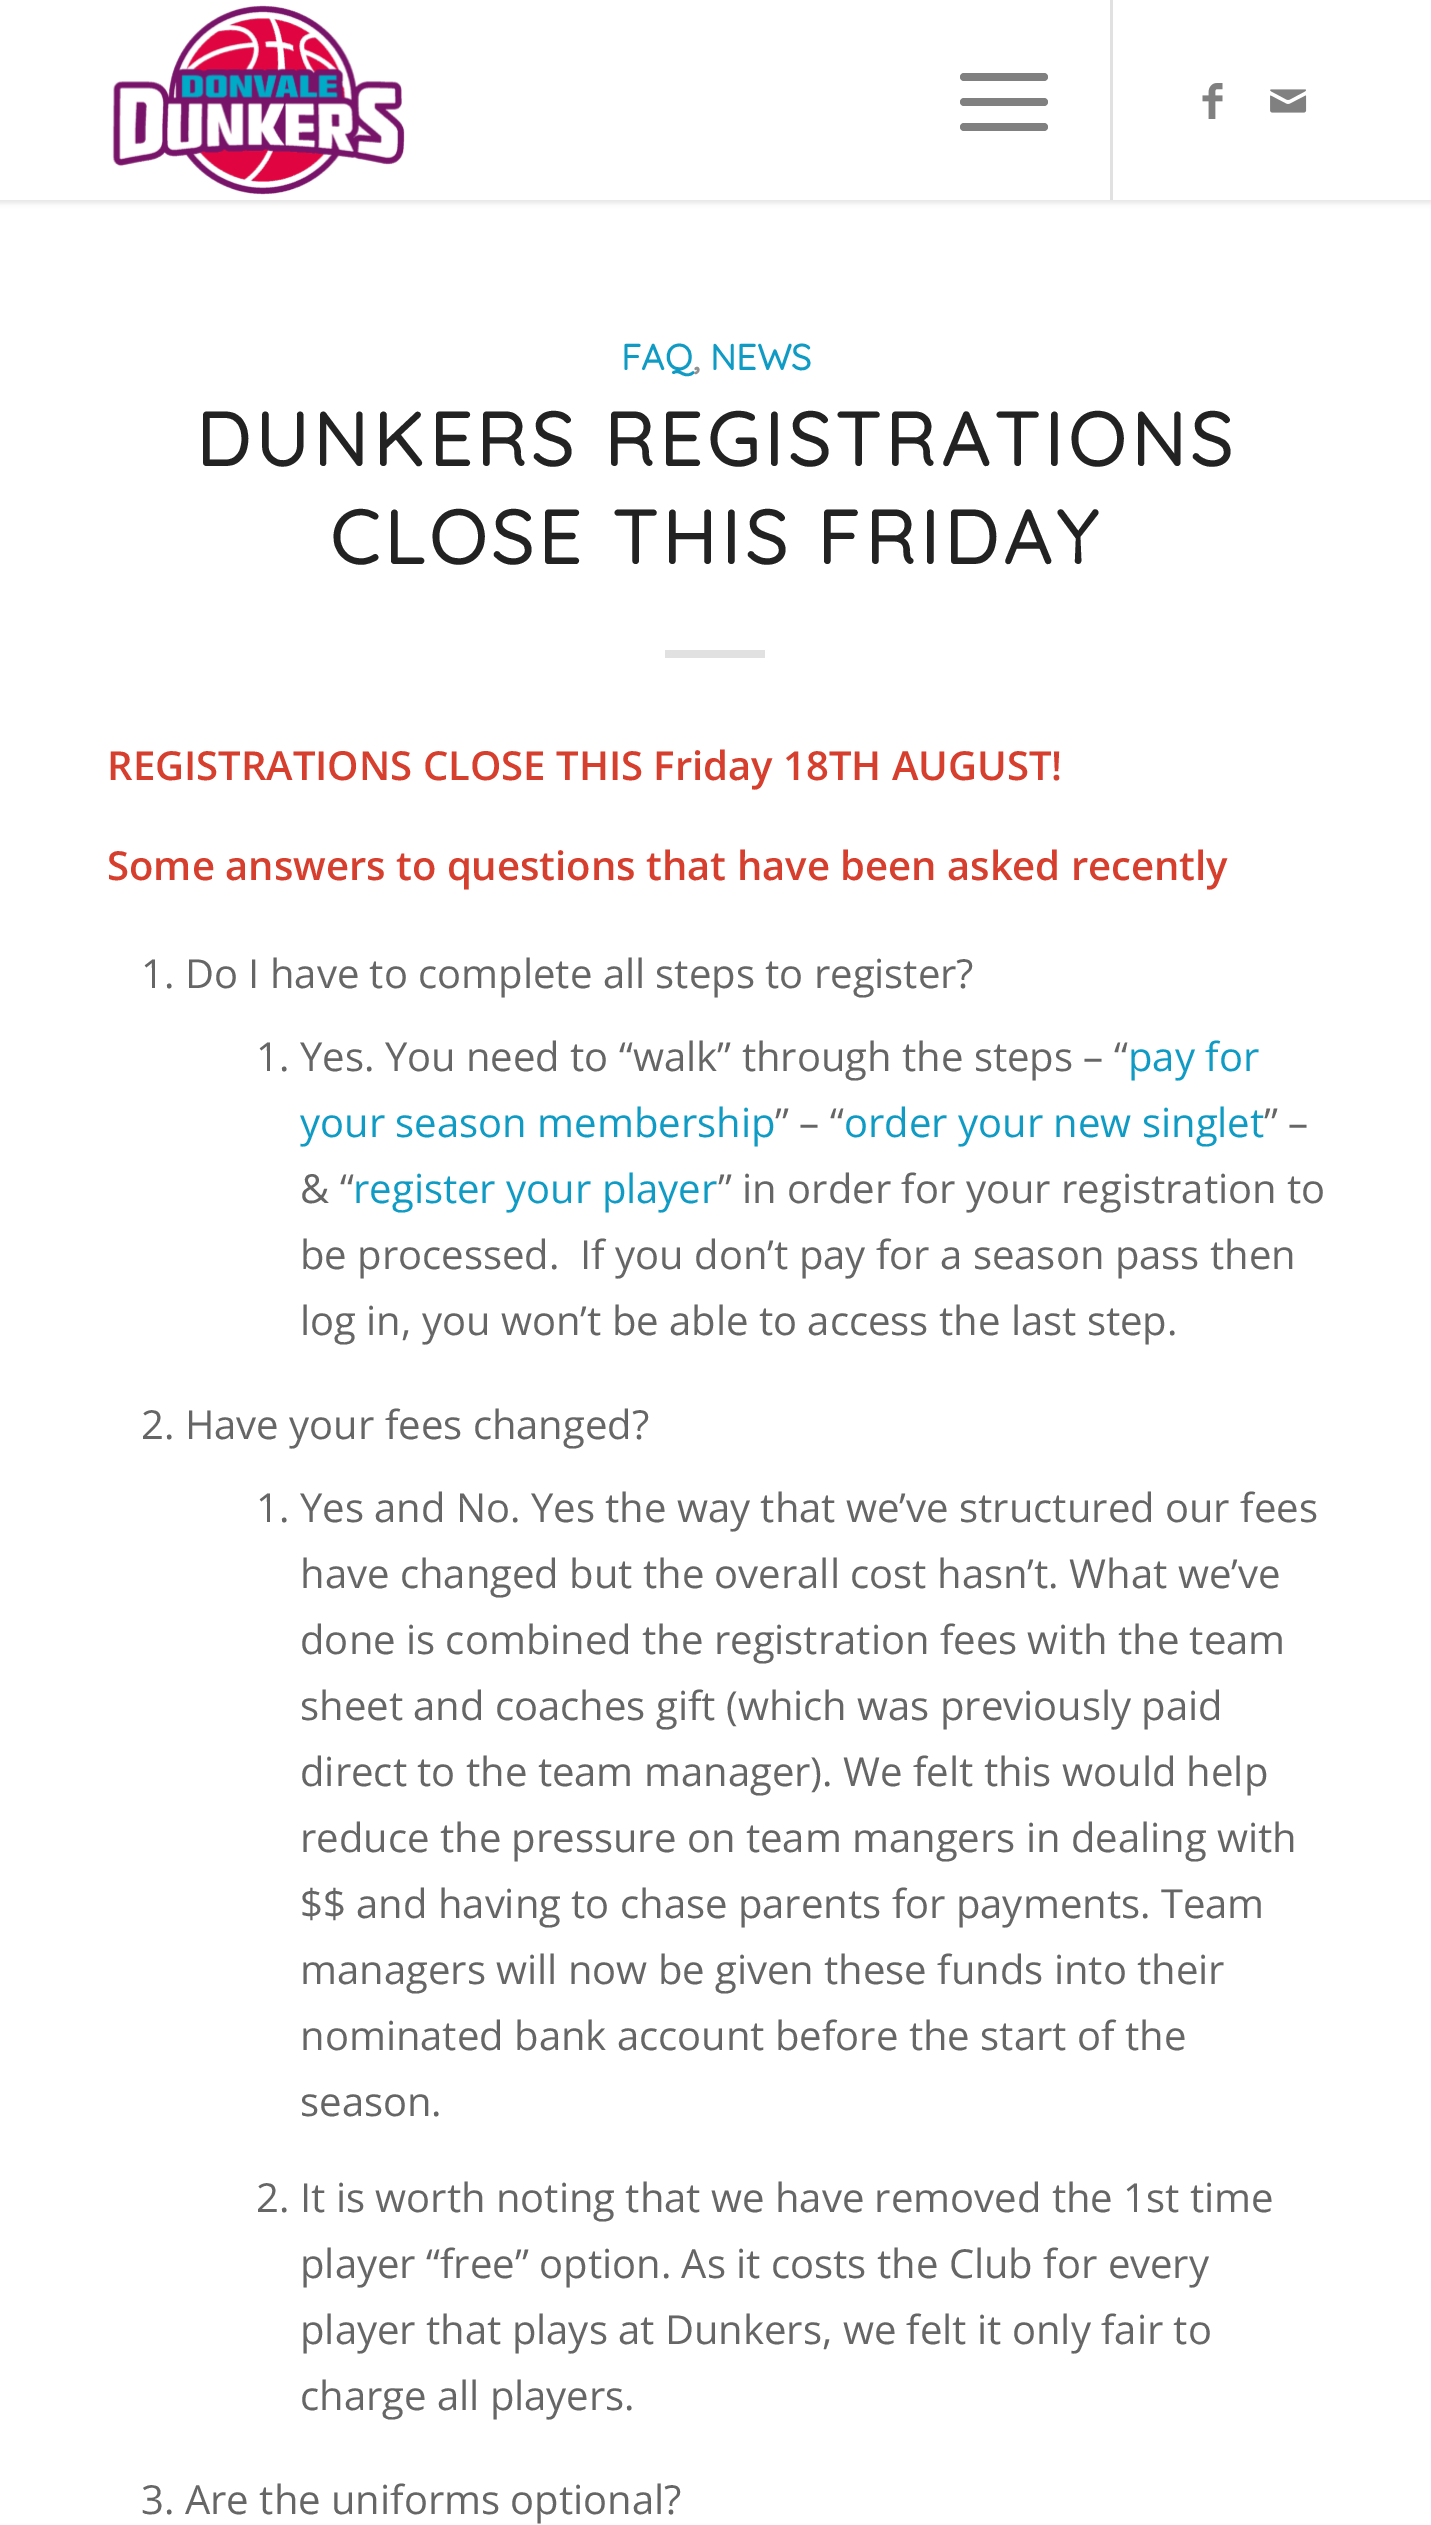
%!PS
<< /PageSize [1431 2525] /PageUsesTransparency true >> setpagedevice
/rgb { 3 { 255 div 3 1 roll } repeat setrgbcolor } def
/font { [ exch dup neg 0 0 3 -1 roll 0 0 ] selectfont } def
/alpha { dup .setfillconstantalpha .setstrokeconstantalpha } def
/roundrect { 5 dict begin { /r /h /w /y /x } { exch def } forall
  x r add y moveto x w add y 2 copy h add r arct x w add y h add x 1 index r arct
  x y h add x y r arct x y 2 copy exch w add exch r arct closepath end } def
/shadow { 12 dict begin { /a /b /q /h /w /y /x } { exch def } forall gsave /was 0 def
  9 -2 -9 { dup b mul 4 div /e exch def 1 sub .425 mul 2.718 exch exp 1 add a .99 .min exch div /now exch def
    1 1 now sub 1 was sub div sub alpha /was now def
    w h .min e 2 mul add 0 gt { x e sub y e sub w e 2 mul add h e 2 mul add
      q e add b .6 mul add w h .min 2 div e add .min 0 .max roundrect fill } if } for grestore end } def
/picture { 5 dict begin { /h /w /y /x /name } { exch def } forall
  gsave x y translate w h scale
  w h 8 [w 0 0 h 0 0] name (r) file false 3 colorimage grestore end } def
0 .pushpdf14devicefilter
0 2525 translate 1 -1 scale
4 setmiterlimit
255 255 255 rgb
0 0 1431 2525 rectfill
0 0 0 rgb
-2 -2 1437 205 0 2.5 0.1 shadow
255 255 255 rgb
0 0 1431 200 rectfill
(img/1.rgb) 112 5 293 190 picture
225 225 225 rgb
1110 0 3 200 rectfill
128 128 128 rgb
960 98 88 8 4 roundrect fill
960 73 88 8 4 roundrect fill
960 123 88 8 4 roundrect fill
(img/2.rgb) 1202 83 21 36 picture
(img/3.rgb) 1270 89 37 24 picture
225 225 225 rgb
665 650 100 8 rectfill
/Quicksand-Bold 36 font
16 155 197 rgb
621 370 moveto (FAQ) show
145 145 145 rgb
693 370 moveto (,) show
16 155 197 rgb
710 370 moveto (NEWS) show
/Quicksand-Bold 75 font
34 34 34 rgb
196 466 moveto 5 0 (DUNKERS REGISTRATIONS) ashow
330 564 moveto 5 0 (CLOSE THIS FRIDAY) ashow
/OpenSans-SemiBold 40 font
214 62 45 rgb
107 780 moveto (REGISTRATIONS CLOSE THIS Friday 18TH AUGUST!) show
107 880 moveto (Some answers to questions that have been asked recently) show
/OpenSans-Regular 40 font
102 102 102 rgb
141 988 moveto (1. Do I have to complete all steps to register?) show
256 1071 moveto (1. Yes. You need to “walk” through the steps – “) show
16 155 197 rgb
1128 1071 moveto (pay for) show
300 1137 moveto (your season membership) show
102 102 102 rgb
775 1137 moveto (” – “) show
16 155 197 rgb
844 1137 moveto (order your new singlet) show
102 102 102 rgb
1264 1137 moveto (” –) show
300 1203 moveto (& “) show
16 155 197 rgb
353 1203 moveto (register your player) show
102 102 102 rgb
[
  [(” in order for your registration to) 718 1203]
  [(be processed.  If you don’t pay for a season pass then) 300 1269]
  [(log in, you won’t be able to access the last step.) 300 1335]
  [(2. Have your fees changed?) 141 1439]
  [(1. Yes and No. Yes the way that we’ve structured our fees) 256 1522]
  [(have changed but the overall cost hasn’t. What we’ve) 300 1588]
  [(done is combined the registration fees with the team) 300 1654]
  [(sheet and coaches gift \(which was previously paid) 300 1720]
  [(direct to the team manager\). We felt this would help) 300 1786]
  [(reduce the pressure on team mangers in dealing with) 300 1852]
  [($$ and having to chase parents for payments. Team) 300 1918]
  [(managers will now be given these funds into their) 300 1984]
  [(nominated bank account before the start of the) 300 2050]
  [(season.) 300 2116]
  [(2. It is worth noting that we have removed the 1st time) 256 2212]
  [(player “free” option. As it costs the Club for every) 300 2278]
  [(player that plays at Dunkers, we felt it only fair to) 300 2344]
  [(charge all players.) 300 2410]
  [(3. Are the uniforms optional?) 141 2514]
] { aload pop moveto show } forall
.poppdf14devicefilter showpage
